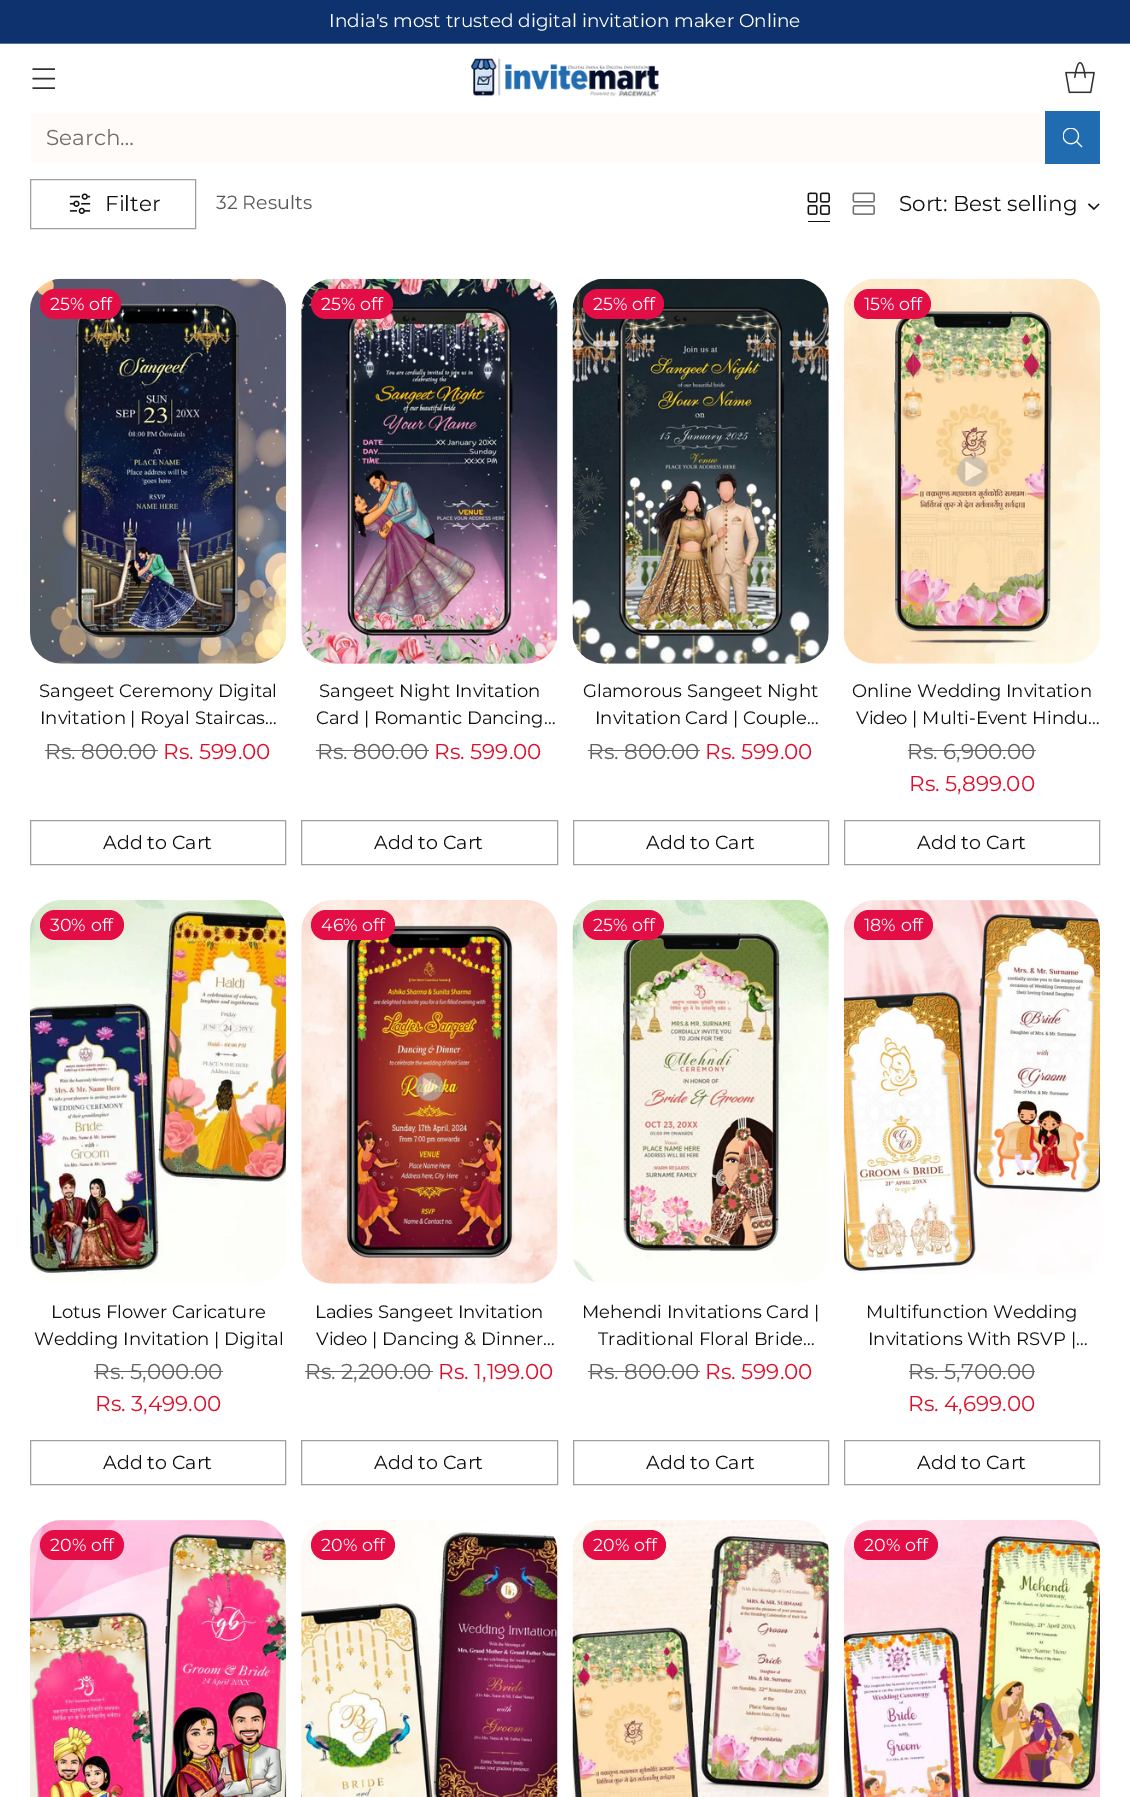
%!PS
<< /PageSize [1130 1797] >> setpagedevice
/rgb { 3 { 255 div 3 1 roll } repeat setrgbcolor } def
/font { [ exch dup neg 0 0 3 -1 roll 0 0 ] selectfont } def
/roundrect { 5 dict begin { /r /h /w /y /x } { exch def } forall
  x r add y moveto x w add y 2 copy h add r arct x w add y h add x 1 index r arct
  x y h add x y r arct x y 2 copy exch w add exch r arct closepath end } def
/picture { 5 dict begin { /h /w /y /x /name } { exch def } forall
  gsave x y translate w h scale
  w h 8 [w 0 0 h 0 0] name (r) file false 3 colorimage grestore end } def
0 1797 translate 1 -1 scale
4 setmiterlimit
255 255 255 rgb
0 0 1130 1797 rectfill
13 50 109 rgb
0 0 1130 43 rectfill
86 112 153 rgb
0 43 1130 1 rectfill
48 48 48 rgb
1.6 setlinewidth
32.5 78.5 moveto 55 78.5 lineto 32.5 69 moveto 55 69 lineto 32.5 88 moveto 55 88 lineto stroke
(img/1.rgb) 471 58 188 39 picture
(img/2.rgb) 1065 62 30 32 picture
255 251 249 rgb
31 113 1014 50 rectfill
33 108 177 rgb
1045 111 55 53 rectfill
(img/3.rgb) 1063 128 20 20 picture
160 160 160 rgb
1 setlinewidth
30.5 179.5 165 49 rectstroke
(img/4.rgb) 69 193 22 22 picture
(img/5.rgb) 807 192 23 23 picture
18 18 18 rgb
808 221 22 1 rectfill
(img/6.rgb) 852 192 23 23 picture
1.4 setlinewidth
1088.5 204 moveto 1094 209 lineto 1099 204 lineto stroke
(img/7.rgb) 30 278 257 386 picture
228 14 71 rgb
40 289 81 30 15 roundrect fill
99 99 99 rgb
45 750 113 1 rectfill
160 160 160 rgb
1 setlinewidth
30.5 820.5 255 44 rectstroke
(img/8.rgb) 301 278 257 386 picture
228 14 71 rgb
311 289 82 30 15 roundrect fill
99 99 99 rgb
316 750 113 1 rectfill
160 160 160 rgb
301.5 820.5 256 44 rectstroke
(img/9.rgb) 572 278 257 386 picture
228 14 71 rgb
583 289 81 30 15 roundrect fill
99 99 99 rgb
588 750 112 1 rectfill
160 160 160 rgb
573.5 820.5 255 44 rectstroke
(img/10.rgb) 843 278 257 386 picture
228 14 71 rgb
854 289 77 30 15 roundrect fill
99 99 99 rgb
908 750 128 1 rectfill
160 160 160 rgb
844.5 820.5 255 44 rectstroke
(img/11.rgb) 30 900 257 383 picture
228 14 71 rgb
40 910 84 30 15 roundrect fill
99 99 99 rgb
94 1371 129 1 rectfill
160 160 160 rgb
30.5 1440.5 255 44 rectstroke
(img/12.rgb) 301 900 257 384 picture
228 14 71 rgb
311 910 84 30 15 roundrect fill
99 99 99 rgb
305 1371 128 1 rectfill
160 160 160 rgb
301.5 1440.5 256 44 rectstroke
(img/13.rgb) 572 900 257 383 picture
228 14 71 rgb
583 910 81 30 15 roundrect fill
99 99 99 rgb
588 1371 112 1 rectfill
160 160 160 rgb
573.5 1440.5 255 44 rectstroke
(img/14.rgb) 843 900 257 374 picture
228 14 71 rgb
854 910 79 30 15 roundrect fill
99 99 99 rgb
909 1371 126 1 rectfill
160 160 160 rgb
844.5 1440.5 255 44 rectstroke
(img/15.rgb) 30 1520 257 277 picture
228 14 71 rgb
40 1530 84 30 15 roundrect fill
(img/16.rgb) 301 1520 257 277 picture
311 1530 84 30 15 roundrect fill
(img/17.rgb) 572 1520 257 277 picture
583 1530 83 30 15 roundrect fill
(img/18.rgb) 843 1520 257 277 picture
854 1530 84 30 15 roundrect fill
/Montserrat-Regular 18.5 font
255 255 255 rgb
329 27 moveto (India's most trusted digital invitation maker Online) show
/Montserrat-Regular 21.5 font
110 109 108 rgb
46 145 moveto (Search…) show
18 18 18 rgb
105 211 moveto (Filter) show
/Montserrat-Regular 19 font
89 89 89 rgb
216 209 moveto (32 Results) show
/Montserrat-Regular 21.5 font
18 18 18 rgb
899 211 moveto (Sort: Best selling) show
/Montserrat-Regular 17.5 font
255 255 255 rgb
50 310 moveto (25% off) show
/Montserrat-Regular 18 font
18 18 18 rgb
39 697 moveto (Sangeet Ceremony Digital) show
40 724 moveto (Invitation | Royal Staircas…) show
/Montserrat-Regular 21.5 font
99 99 99 rgb
45 759 moveto (Rs. 800.00) show
222 15 43 rgb
163 759 moveto (Rs. 599.00) show
/Montserrat-Regular 19 font
18 18 18 rgb
103 849 moveto (Add to Cart) show
/Montserrat-Regular 17.5 font
255 255 255 rgb
321 310 moveto (25% off) show
/Montserrat-Regular 18 font
18 18 18 rgb
319 697 moveto (Sangeet Night Invitation) show
316 724 moveto (Card | Romantic Dancing…) show
/Montserrat-Regular 21.5 font
99 99 99 rgb
317 759 moveto (Rs. 800.00) show
222 15 43 rgb
434 759 moveto (Rs. 599.00) show
/Montserrat-Regular 19 font
18 18 18 rgb
374 849 moveto (Add to Cart) show
/Montserrat-Regular 17.5 font
255 255 255 rgb
593 310 moveto (25% off) show
/Montserrat-Regular 18 font
18 18 18 rgb
583 697 moveto (Glamorous Sangeet Night) show
595 724 moveto (Invitation Card | Couple…) show
/Montserrat-Regular 21.5 font
99 99 99 rgb
588 759 moveto (Rs. 800.00) show
222 15 43 rgb
705 759 moveto (Rs. 599.00) show
/Montserrat-Regular 19 font
18 18 18 rgb
646 849 moveto (Add to Cart) show
/Montserrat-Regular 17.5 font
255 255 255 rgb
864 310 moveto (15% off) show
/Montserrat-Regular 18 font
18 18 18 rgb
852 697 moveto (Online Wedding Invitation) show
856 724 moveto (Video | Multi-Event Hindu…) show
/Montserrat-Regular 21.5 font
99 99 99 rgb
907 759 moveto (Rs. 6,900.00) show
222 15 43 rgb
909 791 moveto (Rs. 5,899.00) show
/Montserrat-Regular 19 font
18 18 18 rgb
917 849 moveto (Add to Cart) show
/Montserrat-Regular 17.5 font
255 255 255 rgb
50 931 moveto (30% off) show
/Montserrat-Regular 18 font
18 18 18 rgb
51 1318 moveto (Lotus Flower Caricature) show
34 1345 moveto (Wedding Invitation | Digital) show
/Montserrat-Regular 21.5 font
99 99 99 rgb
94 1379 moveto (Rs. 5,000.00) show
222 15 43 rgb
95 1411 moveto (Rs. 3,499.00) show
/Montserrat-Regular 19 font
18 18 18 rgb
103 1469 moveto (Add to Cart) show
/Montserrat-Regular 17.5 font
255 255 255 rgb
321 931 moveto (46% off) show
/Montserrat-Regular 18 font
18 18 18 rgb
315 1318 moveto (Ladies Sangeet Invitation) show
316 1345 moveto (Video | Dancing & Dinner…) show
/Montserrat-Regular 21.5 font
99 99 99 rgb
305 1379 moveto (Rs. 2,200.00) show
222 15 43 rgb
438 1379 moveto (Rs. 1,199.00) show
/Montserrat-Regular 19 font
18 18 18 rgb
374 1469 moveto (Add to Cart) show
/Montserrat-Regular 17.5 font
255 255 255 rgb
593 931 moveto (25% off) show
/Montserrat-Regular 18 font
18 18 18 rgb
582 1318 moveto (Mehendi Invitations Card |) show
598 1345 moveto (Traditional Floral Bride…) show
/Montserrat-Regular 21.5 font
99 99 99 rgb
588 1379 moveto (Rs. 800.00) show
222 15 43 rgb
705 1379 moveto (Rs. 599.00) show
/Montserrat-Regular 19 font
18 18 18 rgb
646 1469 moveto (Add to Cart) show
/Montserrat-Regular 17.5 font
255 255 255 rgb
864 931 moveto (18% off) show
/Montserrat-Regular 18 font
18 18 18 rgb
866 1318 moveto (Multifunction Wedding) show
868 1345 moveto (Invitations With RSVP |…) show
/Montserrat-Regular 21.5 font
99 99 99 rgb
908 1379 moveto (Rs. 5,700.00) show
222 15 43 rgb
908 1411 moveto (Rs. 4,699.00) show
/Montserrat-Regular 19 font
18 18 18 rgb
917 1469 moveto (Add to Cart) show
/Montserrat-Regular 17.5 font
255 255 255 rgb
[
  [(20% off) 50 1551]
  [(20% off) 321 1551]
  [(20% off) 593 1551]
  [(20% off) 864 1551]
] { aload pop moveto show } forall
showpage
